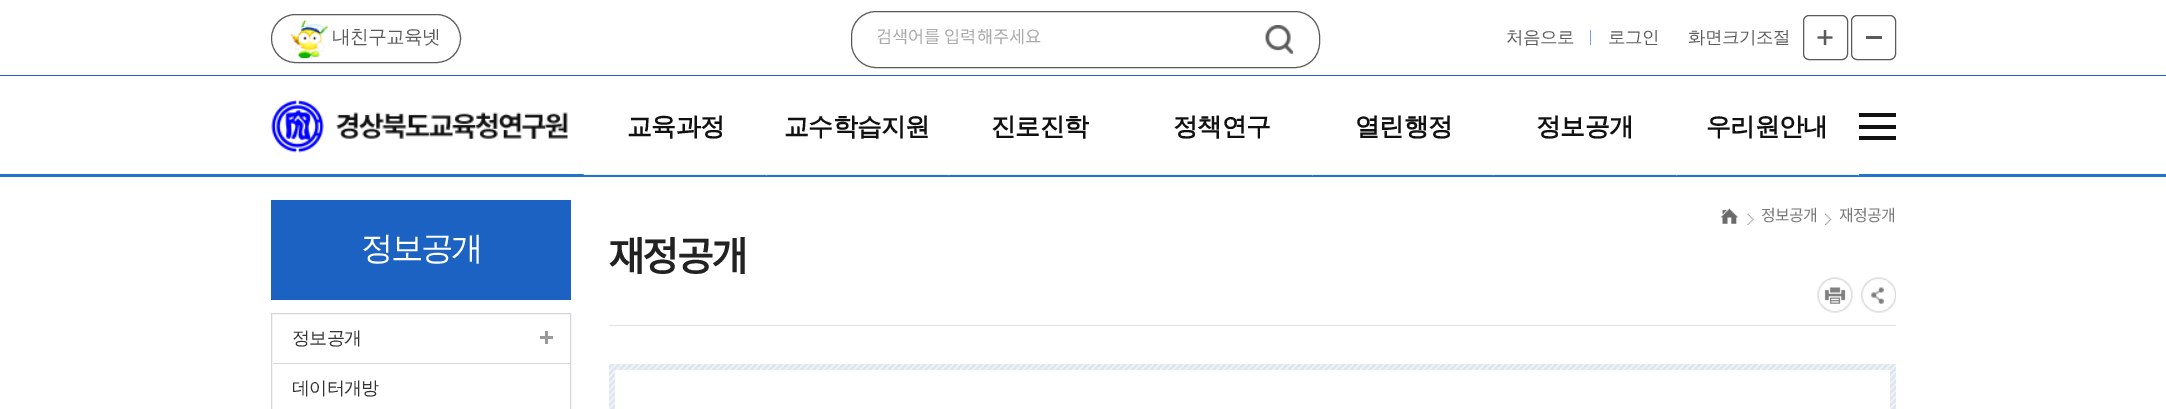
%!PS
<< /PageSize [2166 409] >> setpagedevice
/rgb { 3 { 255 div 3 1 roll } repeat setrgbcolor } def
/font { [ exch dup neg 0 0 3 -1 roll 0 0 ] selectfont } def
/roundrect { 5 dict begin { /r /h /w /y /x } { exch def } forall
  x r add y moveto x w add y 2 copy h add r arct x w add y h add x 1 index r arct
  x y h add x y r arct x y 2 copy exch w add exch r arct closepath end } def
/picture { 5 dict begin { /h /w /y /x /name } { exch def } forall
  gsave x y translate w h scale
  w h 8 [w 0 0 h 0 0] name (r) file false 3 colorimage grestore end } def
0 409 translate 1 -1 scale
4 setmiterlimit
255 255 255 rgb
0 0 2166 409 rectfill
91 91 91 rgb
271.5 14.5 189 48 24 roundrect stroke
(img/1.rgb) 291 20 37 39 picture
851.5 11.5 468 56 24.5 roundrect stroke
(img/2.rgb) 1265 25 29 29 picture
121 163 220 rgb
1590 30 1 15 rectfill
(img/3.rgb) 1817 30 16 15 picture
91 91 91 rgb
1803.5 15.5 44 44 5.5 roundrect stroke
1866 36 16 3 rectfill
1851.5 15.5 44 44 5.5 roundrect stroke
(img/4.rgb) 271 100 297 53 picture
31 116 206 rgb
0 174 2166 3 rectfill
27 98 195 rgb
0 75 2166 1 rectfill
(img/5.rgb) 583 174 2 2 picture
(img/6.rgb) 585 174 181 2 picture
255 255 255 rgb
766 174 183 2 rectfill
(img/7.rgb) 766 174 183 2 picture
(img/8.rgb) 948 174 182 2 picture
1130 174 364 2 rectfill
(img/9.rgb) 1130 174 183 2 picture
(img/10.rgb) 1312 174 182 2 picture
(img/11.rgb) 1493 174 183 2 picture
[
  [1858 113 38 4 17 17 17]
  [1858 125 38 4 17 17 17]
  [1858 136 38 4 17 17 17]
  [1676 113 183 63 255 255 255]
] { aload pop rgb rectfill } forall
(img/7.rgb) 1676 174 183 2 picture
27 98 195 rgb
271 200 300 100 rectfill
211 215 221 rgb
271.5 313.5 299 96 rectstroke
[
  [540 336 13 3 153 153 153]
  [545 331 3 13 153 153 153]
  [273 363 297 1 211 215 221]
  [609 325 1287 1 229 229 229]
] { aload pop rgb rectfill } forall
(img/12.rgb) 1721 208 17 16 picture
(img/13.rgb) 1747 213 7 12 picture
(img/14.rgb) 1825 213 7 12 picture
(img/15.rgb) 1817 277 36 36 picture
(img/16.rgb) 1861 277 35 36 picture
223 230 238 rgb
609 364 1287 45 rectfill
(img/17.rgb) 609 364 1287 45 picture
255 255 255 rgb
615 370 1275 39 rectfill
/WenQuanYiZenHei-Medium 18.75 font
91 91 91 rgb
332 43 moveto -0.75 0 (내친구교육넷) ashow
gsave
878 29 367 21 rectclip
/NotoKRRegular-Regular 17.5 font
170 170 170 rgb
876 43 moveto (검색어를 입력해주세요) show
grestore
/WenQuanYiZenHei-Medium 17.5 font
1506 43 moveto -0.5 0 (처음으로) ashow
1608 43 moveto -0.5 0 (로그인) ashow
1688 43 moveto -0.5 0 (화면크기조절) ashow
/WenQuanYiZenHei-Bold 25 font
17 17 17 rgb
627 135 moveto -0.75 0 (교육과정) ashow
784 135 moveto -0.75 0 (교수학습지원) ashow
991 135 moveto -0.75 0 (진로진학) ashow
1173 135 moveto -0.75 0 (정책연구) ashow
1355 135 moveto -0.75 0 (열린행정) ashow
1536 135 moveto -0.75 0 (정보공개) ashow
1706 135 moveto -0.75 0 (우리원안내) ashow
/WenQuanYiZenHei-Medium 32.5 font
255 255 255 rgb
361 259 moveto -2.5 0 (정보공개) ashow
/WenQuanYiZenHei-Medium 18 font
51 51 51 rgb
292 344 moveto -0.75 0 (정보공개) ashow
292 394 moveto -0.75 0 (데이터개방) ashow
/NotoKRRegular-Regular 16 font
119 119 119 rgb
1761 221 moveto -0.75 0 (정보공개) ashow
1839 221 moveto -0.75 0 (재정공개) ashow
/NotoKRRegular-Bold 40 font
34 34 34 rgb
608 271 moveto -2.5 0 (재정공개) ashow
showpage
